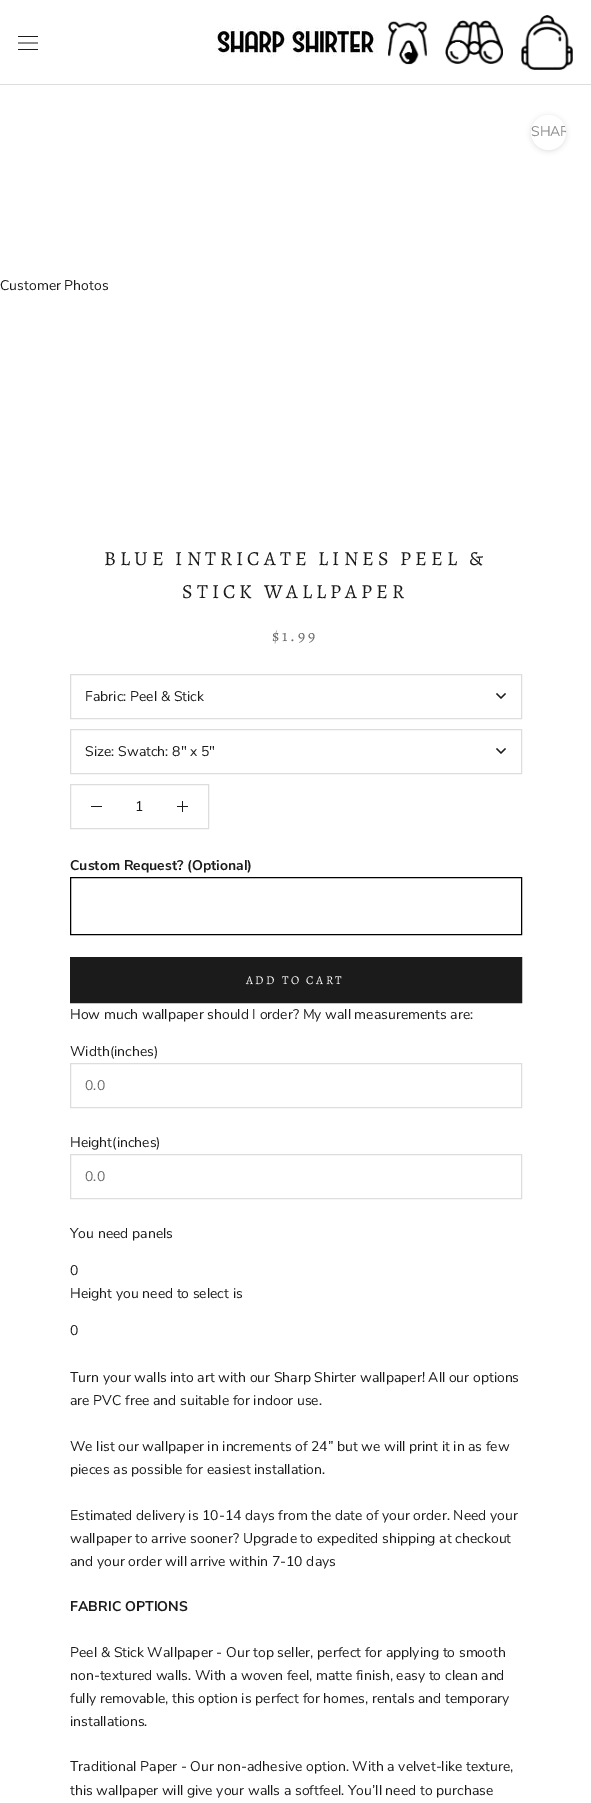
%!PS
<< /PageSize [591 1803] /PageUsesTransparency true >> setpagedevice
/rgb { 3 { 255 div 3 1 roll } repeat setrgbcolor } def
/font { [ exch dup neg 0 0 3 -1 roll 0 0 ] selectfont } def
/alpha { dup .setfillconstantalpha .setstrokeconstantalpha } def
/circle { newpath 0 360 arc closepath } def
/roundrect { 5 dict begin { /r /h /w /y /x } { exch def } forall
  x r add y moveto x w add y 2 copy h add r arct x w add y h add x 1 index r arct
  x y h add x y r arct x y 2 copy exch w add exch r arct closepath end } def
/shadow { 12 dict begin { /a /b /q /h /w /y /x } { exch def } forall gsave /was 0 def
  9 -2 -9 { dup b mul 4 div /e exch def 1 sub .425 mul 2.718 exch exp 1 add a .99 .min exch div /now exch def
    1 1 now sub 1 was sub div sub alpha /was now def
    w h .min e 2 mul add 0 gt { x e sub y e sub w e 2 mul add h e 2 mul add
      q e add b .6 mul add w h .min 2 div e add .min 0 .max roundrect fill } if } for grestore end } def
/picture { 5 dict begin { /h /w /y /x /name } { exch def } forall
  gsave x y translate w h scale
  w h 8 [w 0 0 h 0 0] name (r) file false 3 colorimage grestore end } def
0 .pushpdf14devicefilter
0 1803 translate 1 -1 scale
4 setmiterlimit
255 255 255 rgb
0 0 591 1803 rectfill
221 221 221 rgb
0 84 591 1 rectfill
(img/1.rgb) 18 36 20 14 picture
(img/2.rgb) 214 26 164 32 picture
(img/3.rgb) 388 21 39 44 picture
(img/4.rgb) 445 20 58 44 picture
(img/5.rgb) 521 15 52 55 picture
54 54 54 rgb
531 116 35 35 17.5 2.5 0.15 shadow
255 255 255 rgb
548.5 132.5 17.5 circle fill
221 221 221 rgb
70.5 674.5 451 44 rectstroke
28 27 27 rgb
1.1 setlinewidth
2 setlinecap
505 694 moveto 501 698 lineto 497 694 lineto stroke
221 221 221 rgb
1 setlinewidth
0 setlinecap
70.5 729.5 451 44 rectstroke
28 27 27 rgb
1.1 setlinewidth
2 setlinecap
505 749 moveto 501 753 lineto 497 749 lineto stroke
221 221 221 rgb
1 setlinewidth
0 setlinecap
70.5 784.5 138 44 rectstroke
[
  [91 806 11 1 28 27 27]
  [182 801 1 11 28 27 27]
  [177 806 11 1 28 27 27]
] { aload pop rgb rectfill } forall
0 0 0 rgb
70.5 877.5 451 57 rectstroke
28 27 27 rgb
70.5 957.5 451 45 rectstroke
71 958 450 44 rectfill
221 221 221 rgb
70.5 1063.5 451 44 rectstroke
70.5 1154.5 451 44 rectstroke
gsave
531 115 35 35 17.5 roundrect clip newpath
/NunitoSans-Regular 14 font
141 141 141 rgb
531 136 moveto (SHAR) show
grestore
/NunitoSans-Regular 14 font
28 27 27 rgb
0 290 moveto (Customer Photos) show
/Alegreya-Regular 20 font
104 565 moveto 4 0 (BLUE INTRICATE LINES PEEL &) ashow
182 598 moveto 4 0 (STICK WALLPAPER) ashow
/Alegreya-Regular 16 font
106 106 106 rgb
272 641 moveto 2.75 0 ($1.99) ashow
/NunitoSans-Regular 14 font
28 27 27 rgb
[
  [(Fabric: Peel & Stick) 85 701]
  [(Size: Swatch: 8" x 5") 85 756]
  [(1) 135 811]
] { aload pop moveto show } forall
/NunitoSans-Bold 14 font
70 870 moveto (Custom Request? \(Optional\)) show
/Alegreya-Regular 12 font
255 255 255 rgb
246 984 moveto 2.4 0 (ADD TO CART) ashow
/NunitoSans-Regular 14 font
28 27 27 rgb
70 1019 moveto (How much wallpaper should I order? My wall measurements are:) show
70 1056 moveto (Width\(inches\)) show
106 106 106 rgb
85 1090 moveto (0.0) show
28 27 27 rgb
70 1147 moveto (Height\(inches\)) show
106 106 106 rgb
85 1181 moveto (0.0) show
28 27 27 rgb
[
  [(You need panels) 70 1238]
  [(0) 70 1275]
  [(Height you need to select is) 70 1298]
  [(0) 70 1335]
  [(Turn your walls into art with our Sharp Shirter wallpaper! All our options) 70 1382]
  [(are PVC free and suitable for indoor use.) 70 1405]
  [(We list our wallpaper in increments of 24” but we will print it in as few) 70 1451]
  [(pieces as possible for easiest installation.) 70 1474]
  [(Estimated delivery is 10-14 days from the date of your order. Need your) 70 1520]
  [(wallpaper to arrive sooner? Upgrade to expedited shipping at checkout) 70 1543]
  [(and your order will arrive within 7-10 days) 70 1566]
] { aload pop moveto show } forall
/NunitoSans-Bold 14 font
70 1611 moveto (FABRIC OPTIONS) show
/NunitoSans-Regular 14 font
[
  [(Peel & Stick Wallpaper - Our top seller, perfect for applying to smooth) 70 1657]
  [(non-textured walls. With a woven feel, matte finish, easy to clean and) 70 1680]
  [(fully removable, this option is perfect for homes, rentals and temporary) 70 1703]
  [(installations.) 70 1726]
  [(Traditional Paper - Our non-adhesive option. With a velvet-like texture,) 70 1771]
  [(this wallpaper will give your walls a softfeel. You’ll need to purchase) 70 1795]
] { aload pop moveto show } forall
.poppdf14devicefilter showpage
